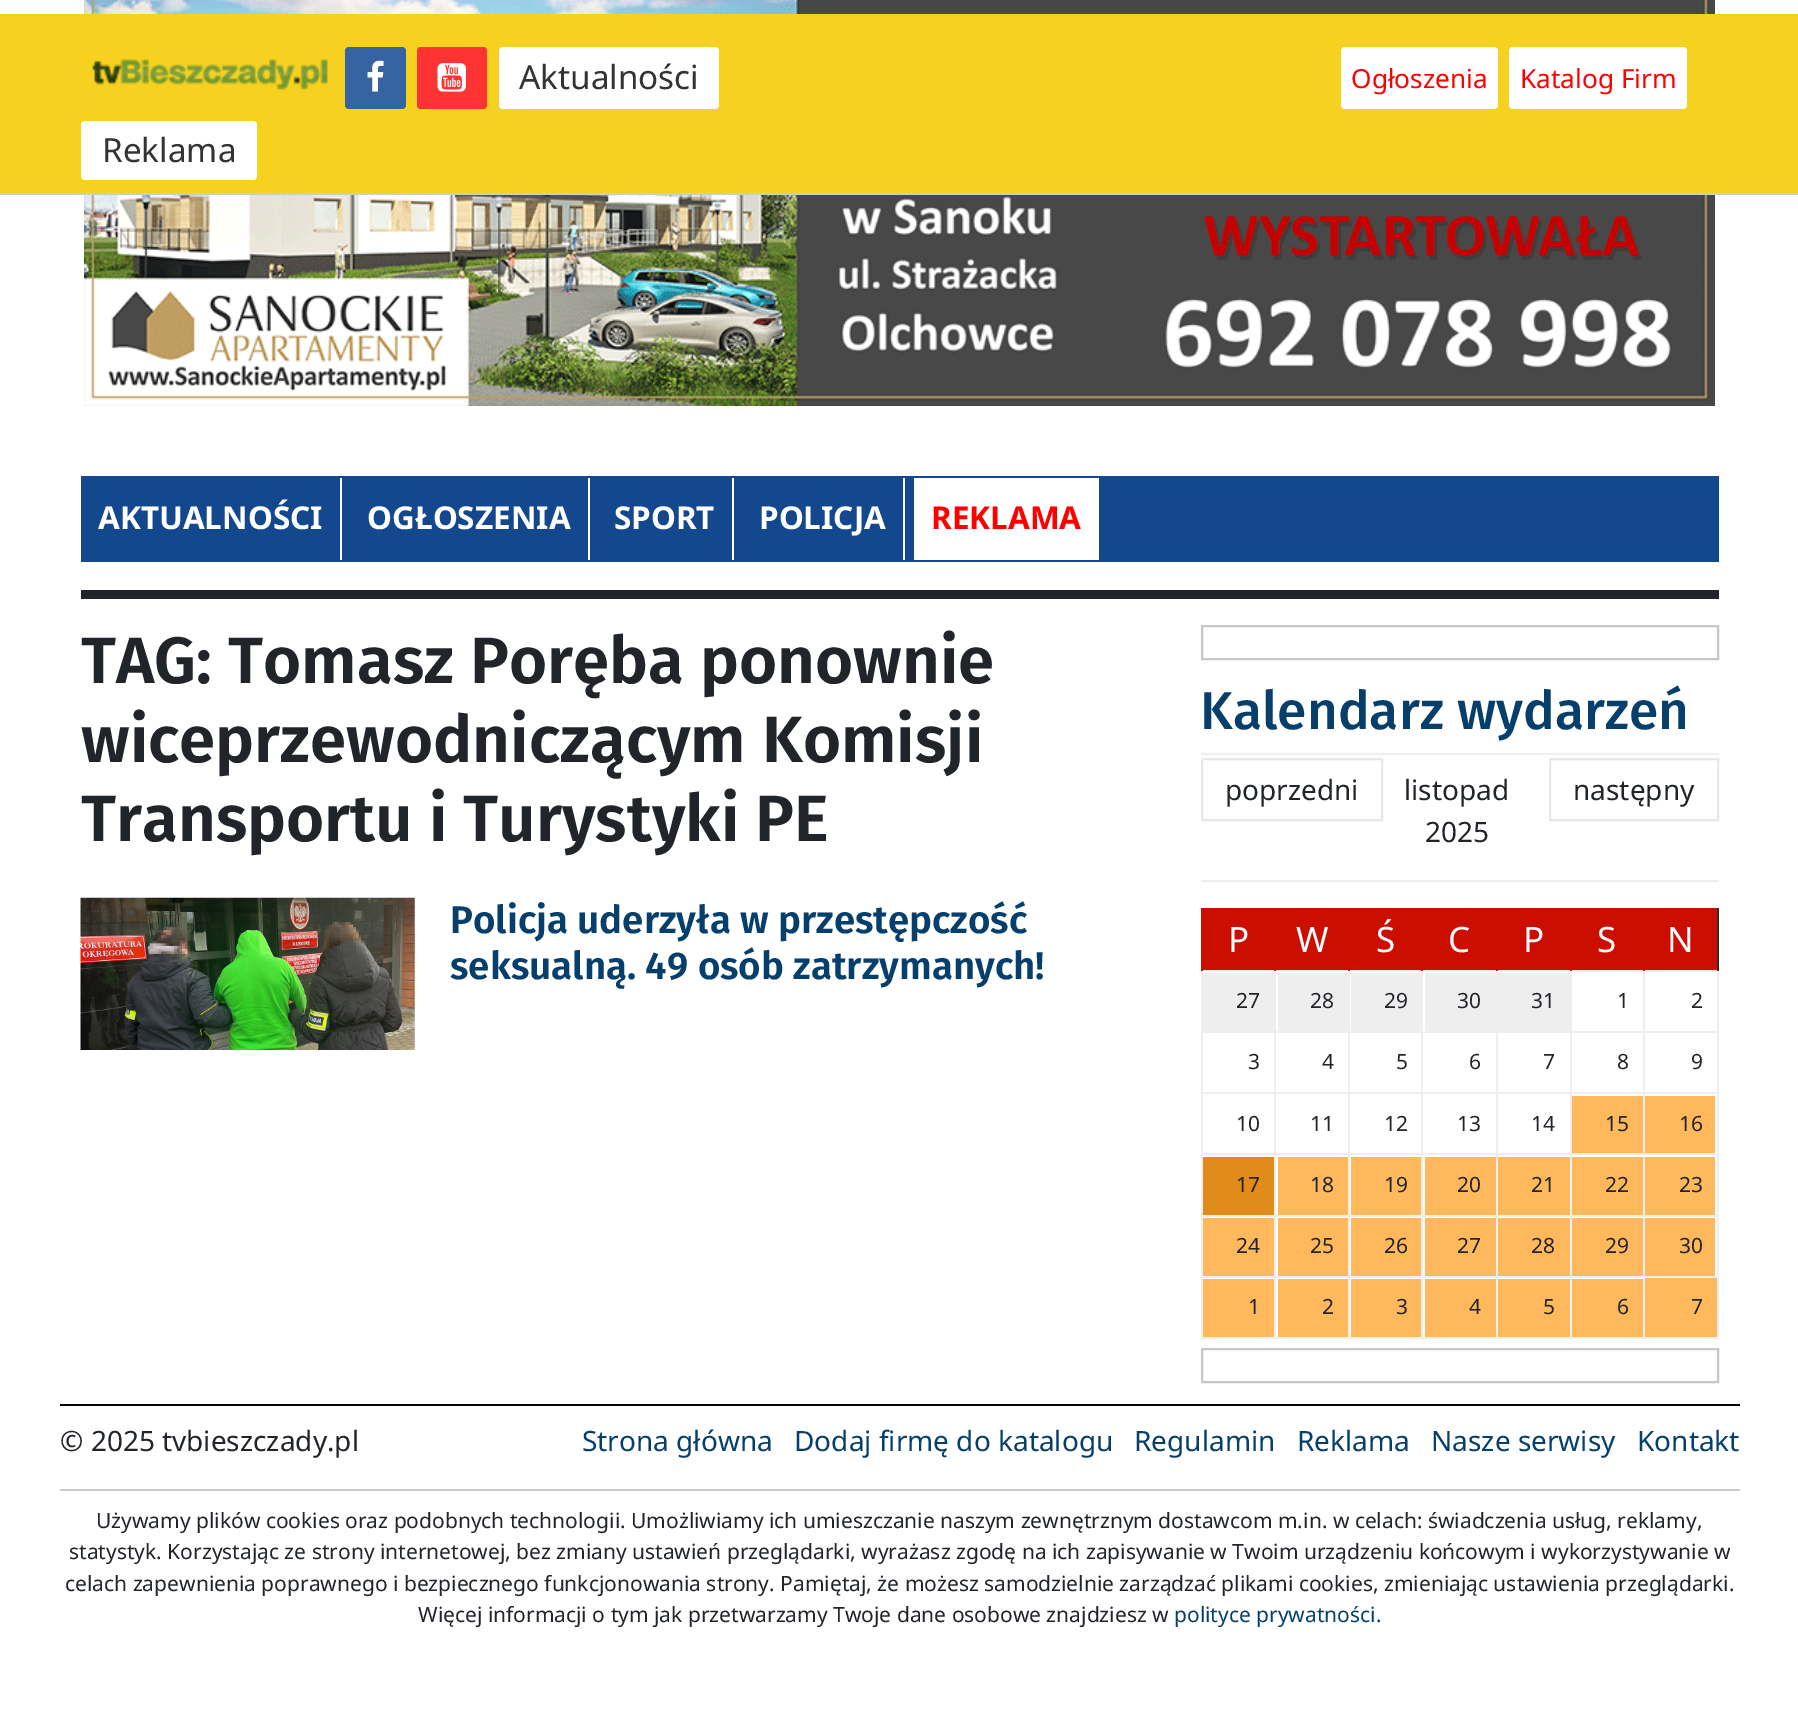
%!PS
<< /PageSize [1798 1736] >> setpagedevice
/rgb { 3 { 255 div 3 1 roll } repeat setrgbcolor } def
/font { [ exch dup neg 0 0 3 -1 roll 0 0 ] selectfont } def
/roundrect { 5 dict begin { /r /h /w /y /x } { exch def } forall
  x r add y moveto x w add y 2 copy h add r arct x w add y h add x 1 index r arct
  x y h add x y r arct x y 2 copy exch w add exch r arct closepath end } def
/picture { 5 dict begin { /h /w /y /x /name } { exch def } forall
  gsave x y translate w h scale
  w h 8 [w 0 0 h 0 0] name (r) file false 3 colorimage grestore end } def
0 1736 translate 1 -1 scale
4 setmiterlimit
255 255 255 rgb
0 0 1798 1736 rectfill
(img/1.rgb) 84 0 1631 406 picture
247 209 31 rgb
0 14 1798 179 rectfill
204 204 204 rgb
0 193 1798 2 rectfill
(img/2.rgb) 92 59 236 31 picture
54 100 162 rgb
345 47 61 62 4 roundrect fill
(img/3.rgb) 367 60 17 32 picture
255 51 52 rgb
417 47 70 62 4 roundrect fill
(img/4.rgb) 437 63 29 29 picture
255 255 255 rgb
499 47 220 62 4 roundrect fill
81 121 176 59 4 roundrect fill
1341 47 157 62 4 roundrect fill
1509 47 178 62 4 roundrect fill
[
  [81 476 1638 86 19 72 142]
  [340 478 2 82 255 255 255]
  [588 478 2 82 255 255 255]
  [732 478 2 82 255 255 255]
  [903 478 2 82 255 255 255]
  [914 478 185 82 255 255 255]
  [81 590 1638 9 33 37 41]
] { aload pop rgb rectfill } forall
(img/5.rgb) 80 897 335 153 picture
199 199 199 rgb
2 setlinewidth
1202 626 516 33 rectstroke
238 238 238 rgb
1201 753 518 2 rectfill
1201 880 518 2 rectfill
234 231 231 rgb
1202 759 180 61 rectstroke
1550 759 168 61 rectstroke
[
  [1203 910 514 60 203 14 0]
  [1201 908 518 2 203 14 0]
  [1643 970 76 2 238 238 238]
  [1643 1031 76 2 238 238 238]
  [1643 1092 76 2 238 238 238]
  [1643 1153 76 2 238 238 238]
  [1643 1215 76 2 238 238 238]
  [1643 1276 76 2 238 238 238]
  [1717 1276 2 63 238 238 238]
  [1643 1337 76 2 238 238 238]
  [1643 1276 2 63 238 238 238]
  [1570 1276 75 2 238 238 238]
  [1643 1215 2 63 238 238 238]
  [1570 1215 75 2 238 238 238]
  [1643 1153 2 63 238 238 238]
  [1570 1153 75 2 238 238 238]
  [1643 1092 2 63 238 238 238]
  [1570 1092 75 2 238 238 238]
  [1643 1031 2 63 238 238 238]
  [1570 1031 75 2 238 238 238]
  [1643 970 2 63 238 238 238]
  [1570 970 75 2 238 238 238]
  [1570 1337 75 2 238 238 238]
  [1570 1276 2 63 238 238 238]
  [1496 1276 76 2 238 238 238]
  [1570 1215 2 63 238 238 238]
  [1496 1215 76 2 238 238 238]
  [1570 1153 2 63 238 238 238]
  [1496 1153 76 2 238 238 238]
  [1570 1092 2 63 238 238 238]
  [1496 1092 76 2 238 238 238]
  [1570 1031 2 63 238 238 238]
  [1496 1031 76 2 238 238 238]
  [1570 970 2 63 238 238 238]
  [1496 970 76 2 238 238 238]
  [1496 1337 76 2 238 238 238]
  [1496 1276 2 63 238 238 238]
  [1421 1276 77 2 238 238 238]
  [1496 1215 2 63 238 238 238]
  [1421 1215 77 2 238 238 238]
  [1496 1153 2 63 238 238 238]
  [1421 1153 77 2 238 238 238]
  [1496 1092 2 63 238 238 238]
  [1421 1092 77 2 238 238 238]
  [1496 1031 2 63 238 238 238]
  [1421 1031 77 2 238 238 238]
  [1496 970 2 63 238 238 238]
  [1421 970 77 2 238 238 238]
  [1421 1337 77 2 238 238 238]
  [1421 1276 2 63 238 238 238]
  [1348 1276 75 2 238 238 238]
  [1421 1215 2 63 238 238 238]
  [1348 1215 75 2 238 238 238]
  [1421 1153 2 63 238 238 238]
  [1348 1153 75 2 238 238 238]
  [1421 1092 2 63 238 238 238]
  [1348 1092 75 2 238 238 238]
  [1421 1031 2 63 238 238 238]
  [1348 1031 75 2 238 238 238]
  [1421 970 2 63 238 238 238]
  [1348 970 75 2 238 238 238]
  [1348 1337 75 2 238 238 238]
  [1348 1276 2 63 238 238 238]
  [1274 1276 75 2 238 238 238]
  [1348 1215 2 63 238 238 238]
  [1274 1215 75 2 238 238 238]
  [1348 1153 2 63 238 238 238]
  [1274 1153 75 2 238 238 238]
  [1348 1092 2 63 238 238 238]
  [1274 1092 75 2 238 238 238]
  [1348 1031 2 63 238 238 238]
  [1274 1031 75 2 238 238 238]
  [1348 970 2 63 238 238 238]
  [1274 970 75 2 238 238 238]
  [1274 1337 75 2 238 238 238]
  [1274 1276 2 63 238 238 238]
  [1201 1276 75 2 238 238 238]
  [1274 1215 2 63 238 238 238]
  [1201 1215 75 2 238 238 238]
  [1274 1153 2 63 238 238 238]
  [1201 1153 75 2 238 238 238]
  [1274 1092 2 63 238 238 238]
  [1201 1092 75 2 238 238 238]
  [1274 1031 2 63 238 238 238]
  [1201 1031 75 2 238 238 238]
  [1274 970 2 63 238 238 238]
  [1201 970 75 2 238 238 238]
  [1201 1337 75 2 238 238 238]
  [1201 1276 2 63 238 238 238]
  [1201 1215 2 63 238 238 238]
  [1201 1153 2 63 238 238 238]
  [1201 1092 2 63 238 238 238]
  [1201 1031 2 63 238 238 238]
  [1201 970 2 63 238 238 238]
  [1201 908 2 63 203 14 0]
  [1274 970 2 1 203 14 0]
  [1348 970 2 1 203 14 0]
  [1421 970 2 1 203 14 0]
  [1496 970 2 1 203 14 0]
  [1570 970 2 1 203 14 0]
  [1717 1215 2 63 238 238 238]
  [1717 1153 2 63 238 238 238]
  [1717 1092 2 63 238 238 238]
  [1717 1031 2 63 238 238 238]
  [1717 970 2 63 238 238 238]
  [1717 908 2 63 51 44 34]
  [1643 970 2 1 203 14 0]
  [1203 973 71 58 238 238 238]
  [1278 973 70 58 238 238 238]
  [1351 973 70 58 238 238 238]
  [1425 973 71 58 238 238 238]
  [1498 973 72 58 238 238 238]
  [1572 1096 71 57 255 184 92]
  [1645 1096 70 57 255 184 92]
  [1203 1157 71 58 225 139 26]
  [1278 1157 70 58 255 184 92]
  [1351 1157 70 58 255 184 92]
  [1425 1157 71 58 255 184 92]
  [1498 1157 72 58 255 184 92]
  [1572 1157 71 58 255 184 92]
  [1645 1157 70 58 255 184 92]
  [1203 1218 71 58 255 184 92]
  [1278 1218 70 58 255 184 92]
  [1351 1218 70 58 255 184 92]
  [1425 1218 71 58 255 184 92]
  [1498 1218 72 58 255 184 92]
  [1572 1218 71 58 255 184 92]
  [1645 1218 70 58 255 184 92]
  [1203 1279 71 58 255 184 92]
  [1278 1279 70 58 255 184 92]
  [1351 1279 70 58 255 184 92]
  [1425 1279 71 58 255 184 92]
  [1498 1279 72 58 255 184 92]
  [1572 1279 71 58 255 184 92]
  [1645 1278 72 59 255 184 92]
] { aload pop rgb rectfill } forall
199 199 199 rgb
1202 1349 516 33 rectstroke
0 0 0 rgb
60 1404 1680 2 rectfill
200 201 202 rgb
60 1489 1680 2 rectfill
/NotoSans-Regular 33.25 font
51 51 51 rgb
519 89 moveto (Aktualności) show
102 162 moveto (Reklama) show
/NotoSans-Regular 26.25 font
255 0 0 rgb
1351 88 moveto (Ogłoszenia) show
1520 88 moveto (Katalog Firm) show
/NotoSans-Bold 31.5 font
255 255 255 rgb
[
  [(AKTUALNOŚCI) 98 529]
  [(OGŁOSZENIA) 367 529]
  [(SPORT) 614 529]
  [(POLICJA) 759 529]
] { aload pop moveto show } forall
255 0 0 rgb
931 529 moveto (REKLAMA) show
/FiraSans-SemiBold 65.5 font
33 37 41 rgb
[
  [(TAG: Tomasz Poręba ponownie) 81 683]
  [(wiceprzewodniczącym Komisji) 81 762]
  [(Transportu i Turystyki PE) 81 841]
] { aload pop moveto show } forall
/FiraSans-SemiBold 38.5 font
6 63 108 rgb
450 933 moveto (Policja uderzyła w przestępczość) show
450 979 moveto (seksualną. 49 osób zatrzymanych!) show
/FiraSans-Medium 53.25 font
1200 729 moveto (Kalendarz wydarzeń) show
/NotoSans-Regular 28 font
33 37 41 rgb
[
  [(poprzedni) 1225 800]
  [(listopad) 1404 800]
  [(2025) 1425 842]
  [(następny) 1573 800]
] { aload pop moveto show } forall
/NotoSans-Regular 35 font
255 255 255 rgb
[
  [(P) 1228 952]
  [(W) 1296 952]
  [(Ś) 1376 952]
  [(C) 1448 952]
  [(P) 1523 952]
  [(S) 1597 952]
  [(N) 1667 952]
] { aload pop moveto show } forall
/NotoSans-Regular 21 font
33 37 41 rgb
[
  [(27) 1236 1008]
  [(28) 1310 1008]
  [(29) 1384 1008]
  [(30) 1457 1008]
  [(31) 1531 1008]
  [(1) 1617 1008]
  [(2) 1691 1008]
  [(3) 1248 1069]
  [(4) 1322 1069]
  [(5) 1396 1069]
  [(6) 1469 1069]
  [(7) 1543 1069]
  [(8) 1617 1069]
  [(9) 1691 1069]
  [(10) 1236 1131]
  [(11) 1310 1131]
  [(12) 1384 1131]
  [(13) 1457 1131]
  [(14) 1531 1131]
  [(15) 1605 1131]
  [(16) 1679 1131]
  [(17) 1236 1192]
  [(18) 1310 1192]
  [(19) 1384 1192]
  [(20) 1457 1192]
  [(21) 1531 1192]
  [(22) 1605 1192]
  [(23) 1679 1192]
  [(24) 1236 1253]
  [(25) 1310 1253]
  [(26) 1384 1253]
  [(27) 1457 1253]
  [(28) 1531 1253]
  [(29) 1605 1253]
  [(30) 1679 1253]
  [(1) 1248 1314]
  [(2) 1322 1314]
  [(3) 1396 1314]
  [(4) 1469 1314]
  [(5) 1543 1314]
  [(6) 1617 1314]
  [(7) 1691 1314]
] { aload pop moveto show } forall
/NotoSans-Regular 28 font
60 1451 moveto (© 2025 tvbieszczady.pl) show
6 63 108 rgb
[
  [(Strona główna) 582 1451]
  [(Dodaj firmę do katalogu) 794 1451]
  [(Regulamin) 1134 1451]
  [(Reklama) 1297 1451]
  [(Nasze serwisy) 1431 1451]
  [(Kontakt) 1637 1451]
] { aload pop moveto show } forall
/NotoSans-Regular 21 font
33 37 41 rgb
[
  [(Używamy plików cookies oraz podobnych technologii. Umożliwiamy ich umieszczanie naszym zewnętrznym dostawcom m.in. w celach: świadczenia usług, reklamy,) 96 1528]
  [(statystyk. Korzystając ze strony internetowej, bez zmiany ustawień przeglądarki, wyrażasz zgodę na ich zapisywanie w Twoim urządzeniu końcowym i wykorzystywanie w) 69 1559]
  [(celach zapewnienia poprawnego i bezpiecznego funkcjonowania strony. Pamiętaj, że możesz samodzielnie zarządzać plikami cookies, zmieniając ustawienia przeglądarki.) 65 1591]
  [(Więcej informacji o tym jak przetwarzamy Twoje dane osobowe znajdziesz w) 418 1622]
] { aload pop moveto show } forall
6 63 108 rgb
1174 1622 moveto (polityce prywatności.) show
showpage
